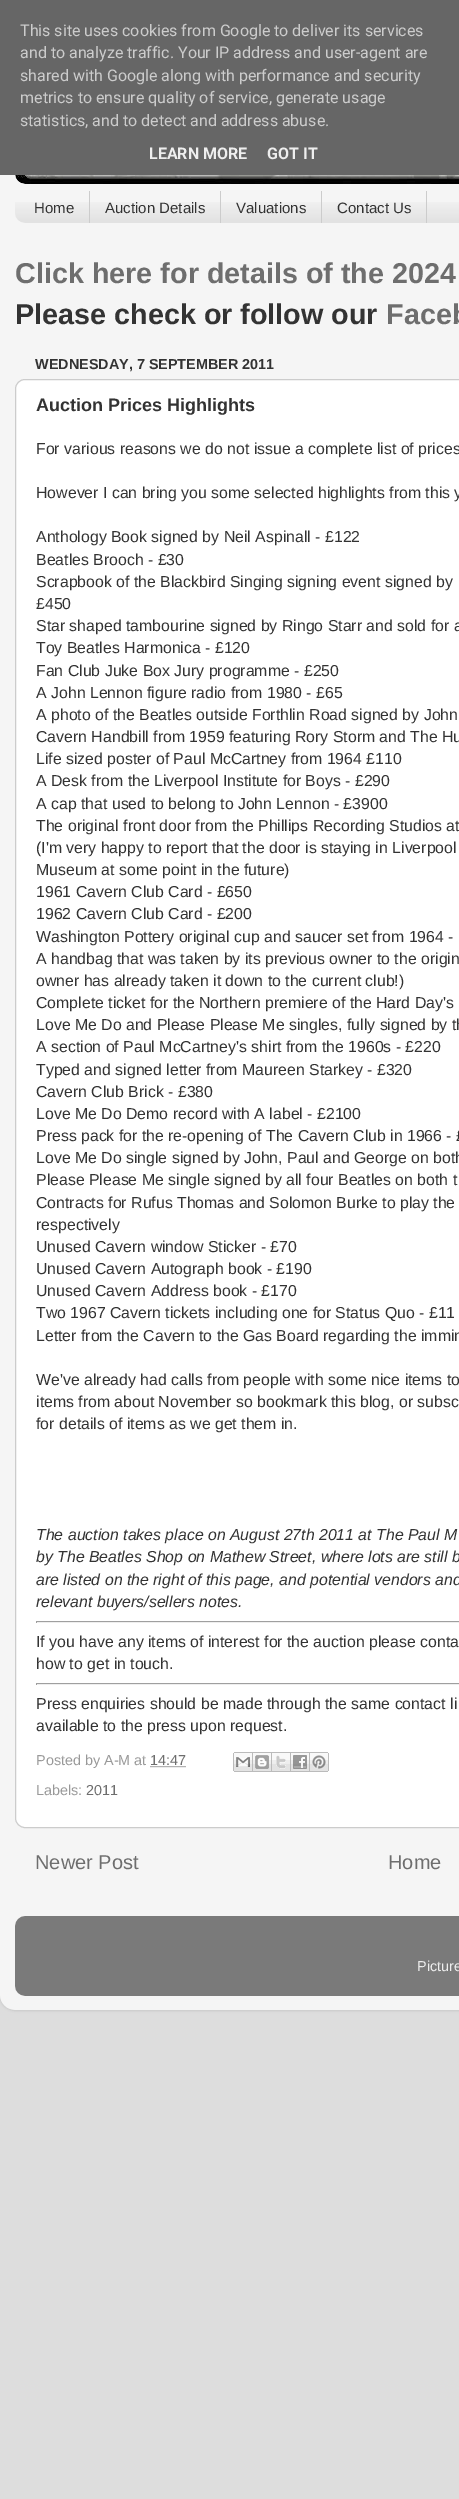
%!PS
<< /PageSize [459 2499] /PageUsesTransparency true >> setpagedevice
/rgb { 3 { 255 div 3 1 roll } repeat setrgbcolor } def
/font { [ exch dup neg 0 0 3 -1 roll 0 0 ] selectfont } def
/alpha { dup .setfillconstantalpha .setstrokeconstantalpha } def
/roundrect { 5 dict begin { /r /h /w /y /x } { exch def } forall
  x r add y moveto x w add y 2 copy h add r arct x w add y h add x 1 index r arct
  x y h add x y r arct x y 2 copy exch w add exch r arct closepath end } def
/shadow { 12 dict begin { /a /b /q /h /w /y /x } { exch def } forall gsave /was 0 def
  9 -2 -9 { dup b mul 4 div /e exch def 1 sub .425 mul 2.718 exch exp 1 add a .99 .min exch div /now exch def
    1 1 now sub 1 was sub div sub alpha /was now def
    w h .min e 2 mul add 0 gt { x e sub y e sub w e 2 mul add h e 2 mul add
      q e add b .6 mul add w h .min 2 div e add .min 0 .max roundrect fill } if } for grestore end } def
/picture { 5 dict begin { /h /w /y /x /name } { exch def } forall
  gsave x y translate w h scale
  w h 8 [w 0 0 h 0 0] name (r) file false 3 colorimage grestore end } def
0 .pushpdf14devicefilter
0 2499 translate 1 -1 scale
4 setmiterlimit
221 221 221 rgb
0 0 459 2499 rectfill
gsave
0 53 moveto 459 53 lineto 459 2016 lineto 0 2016 lineto closepath 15 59 moveto 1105 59 lineto 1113.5 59 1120 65.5 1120 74 curveto 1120 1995 lineto 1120 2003.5 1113.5 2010 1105 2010 curveto 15 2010 lineto 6.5 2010 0 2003.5 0 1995 curveto 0 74 lineto 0 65.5 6.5 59 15 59 curveto closepath eoclip newpath
0 0 0 rgb
0 59 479 1951 15 1.5 0.15 shadow
grestore
102 102 102 rgb
0 0 459 175 rectfill
(img/1.rgb) 0 175 459 1835 picture
(img/2.rgb) 15 175 444 9 picture
(img/3.rgb) 15 202 444 21 picture
[
  [89 191 1 32 204 204 204]
  [220 191 1 32 204 204 204]
  [321 191 1 32 204 204 204]
  [426 191 1 32 204 204 204]
] { aload pop rgb rectfill } forall
255 255 255 rgb
15.5 379.5 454 1448 9.5 roundrect gsave fill grestore
204 204 204 rgb
stroke
[
  [36 1621 423 1 159 159 159]
  [36 1622 423 1 238 238 238]
  [36 1621 1 2 159 159 159]
  [36 1683 423 1 159 159 159]
  [36 1684 423 1 238 238 238]
  [36 1683 1 2 159 159 159]
] { aload pop rgb rectfill } forall
110 110 110 rgb
[1 1] 0 setdash
150.5 1766.5 moveto 186.5 1766.5 lineto stroke
(img/4.rgb) 233 1752 20 20 picture
(img/5.rgb) 253 1752 19 20 picture
(img/6.rgb) 272 1752 19 20 picture
(img/7.rgb) 291 1752 19 20 picture
(img/8.rgb) 310 1752 19 20 picture
(img/9.rgb) 15 1916 444 80 picture
/Roboto-Regular 16 font
204 204 204 rgb
[
  [(This site uses cookies from Google to deliver its services) 20 36]
  [(and to analyze traffic. Your IP address and user-agent are) 20 58]
  [(shared with Google along with performance and security) 20 81]
  [(metrics to ensure quality of service, generate usage) 20 103]
  [(statistics, and to detect and address abuse.) 20 126]
] { aload pop moveto show } forall
/Roboto-Bold 16 font
238 238 238 rgb
149 159 moveto (LEARN MORE) show
267 159 moveto (GOT IT) show
/LiberationSans-Regular 15 font
51 51 51 rgb
[
  [(Home) 34 213]
  [(Auction Details) 105 213]
  [(Valuations) 236 213]
  [(Contact Us) 337 213]
] { aload pop moveto show } forall
/LiberationSans-Bold 28.75 font
110 110 110 rgb
15 283 moveto (Click here for details of the 2024) show
51 51 51 rgb
15 324 moveto (Please check or follow our) show
110 110 110 rgb
386 324 moveto (Faceb) show
/LiberationSans-Bold 14.4 font
51 51 51 rgb
35 369 moveto (WEDNESDAY, 7 SEPTEMBER 2011) show
/LiberationSans-Bold 18 font
36 411 moveto (Auction Prices Highlights) show
/LiberationSans-Regular 15.85 font
[
  [(For various reasons we do not issue a complete list of prices) 36 454]
  [(However I can bring you some selected highlights from this y) 36 498]
  [(Anthology Book signed by Neil Aspinall - £122) 36 542]
  [(Beatles Brooch - £30) 36 565]
  [(Scrapbook of the Blackbird Singing signing event signed by) 36 587]
  [(£450) 36 609]
  [(Star shaped tambourine signed by Ringo Starr and sold for a) 36 631]
  [(Toy Beatles Harmonica - £120) 36 653]
  [(Fan Club Juke Box Jury programme - £250) 36 676]
  [(A John Lennon figure radio from 1980 - £65) 36 698]
  [(A photo of the Beatles outside Forthlin Road signed by John) 36 720]
  [(Cavern Handbill from 1959 featuring Rory Storm and The Hu) 36 742]
  [(Life sized poster of Paul McCartney from 1964 £110) 36 764]
  [(A Desk from the Liverpool Institute for Boys - £290) 36 786]
  [(A cap that used to belong to John Lennon - £3900) 36 809]
  [(The original front door from the Phillips Recording Studios at) 36 831]
  [(\(I'm very happy to report that the door is staying in Liverpool) 36 853]
  [(Museum at some point in the future\)) 36 875]
  [(1961 Cavern Club Card - £650) 36 897]
  [(1962 Cavern Club Card - £200) 36 919]
  [(Washington Pottery original cup and saucer set from 1964 -) 36 942]
  [(A handbag that was taken by its previous owner to the origin) 36 964]
  [(owner has already taken it down to the current club!\)) 36 986]
  [(Complete ticket for the Northern premiere of the Hard Day's) 36 1008]
  [(Love Me Do and Please Please Me singles, fully signed by th) 36 1030]
  [(A section of Paul McCartney's shirt from the 1960s - £220) 36 1052]
  [(Typed and signed letter from Maureen Starkey - £320) 36 1075]
  [(Cavern Club Brick - £380) 36 1097]
  [(Love Me Do Demo record with A label - £2100) 36 1119]
  [(Press pack for the re-opening of The Cavern Club in 1966 - £) 36 1141]
  [(Love Me Do single signed by John, Paul and George on both) 36 1163]
  [(Please Please Me single signed by all four Beatles on both t) 36 1185]
  [(Contracts for Rufus Thomas and Solomon Burke to play the) 36 1208]
  [(respectively) 36 1230]
  [(Unused Cavern window Sticker - £70) 36 1252]
  [(Unused Cavern Autograph book - £190) 36 1274]
  [(Unused Cavern Address book - £170) 36 1296]
  [(Two 1967 Cavern tickets including one for Status Quo - £11) 36 1318]
  [(Letter from the Cavern to the Gas Board regarding the immin) 36 1341]
  [(We've already had calls from people with some nice items to) 36 1385]
  [(items from about November so bookmark this blog, or subsc) 36 1407]
  [(for details of items as we get them in.) 36 1429]
] { aload pop moveto show } forall
/LiberationSans-Italic 15.85 font
[
  [(The auction takes place on August 27th 2011 at The Paul M) 36 1540]
  [(by The Beatles Shop on Mathew Street, where lots are still b) 36 1562]
  [(are listed on the right of this page, and potential vendors and) 36 1585]
  [(relevant buyers/sellers notes.) 36 1607]
] { aload pop moveto show } forall
/LiberationSans-Regular 15.85 font
[
  [(If you have any items of interest for the auction please conta) 36 1647]
  [(how to get in touch.) 36 1669]
  [(Press enquiries should be made through the same contact li) 36 1709]
  [(available to the press upon request.) 36 1731]
] { aload pop moveto show } forall
/LiberationSans-Regular 14.4 font
153 153 153 rgb
36 1765 moveto (Posted by A-M at) show
110 110 110 rgb
150 1765 moveto (14:47) show
153 153 153 rgb
36 1795 moveto (Labels:) show
110 110 110 rgb
86 1795 moveto (2011) show
/LiberationSans-Regular 20 font
35 1869 moveto (Newer Post) show
388 1869 moveto (Home) show
/LiberationSans-Regular 14.4 font
238 238 238 rgb
417 1971 moveto (Picture) show
.poppdf14devicefilter showpage
